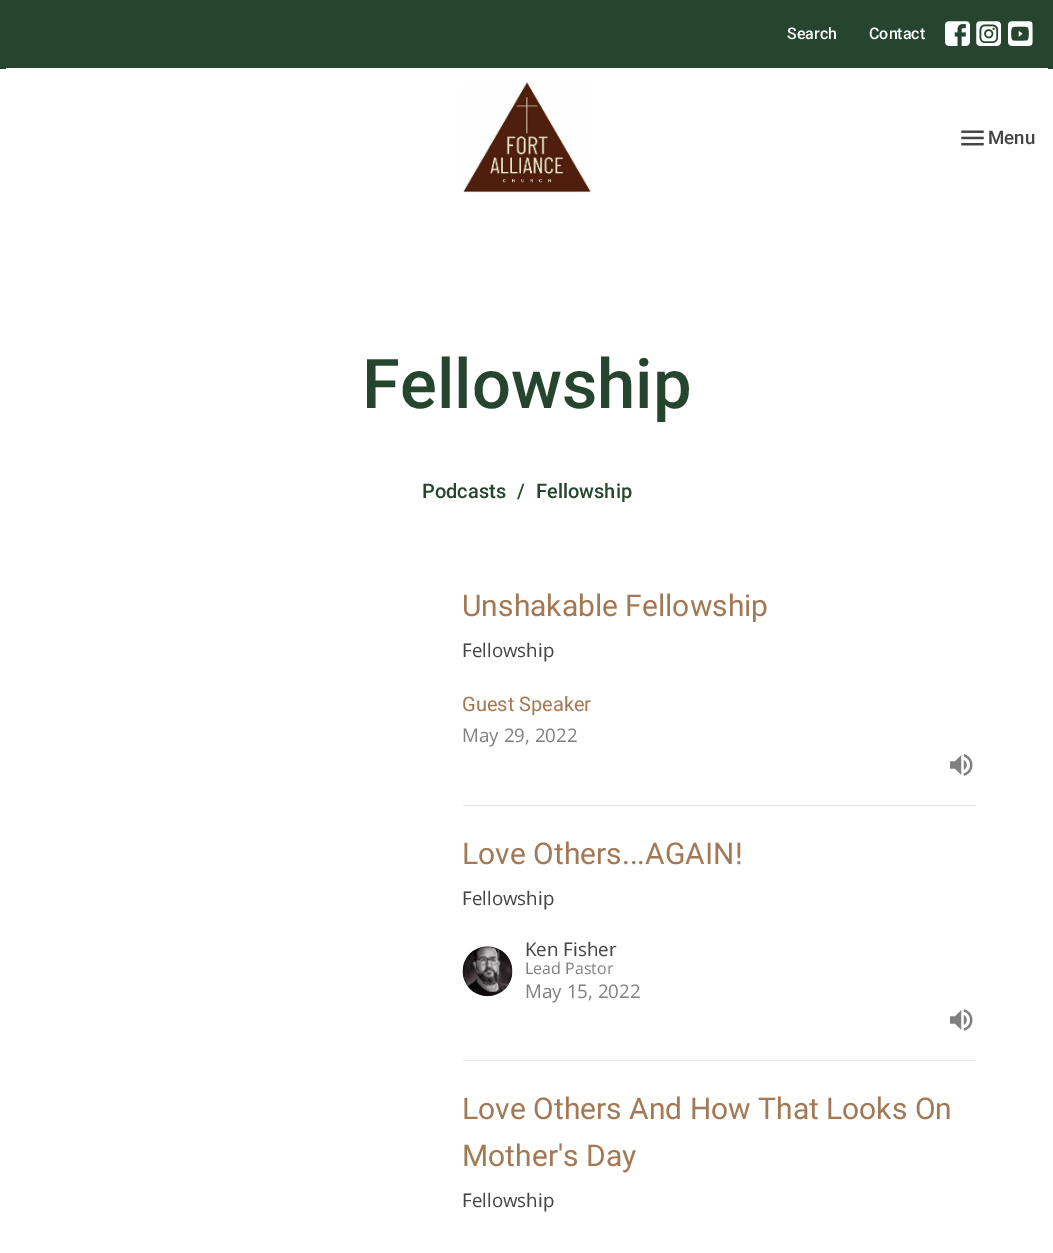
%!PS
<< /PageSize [1053 1253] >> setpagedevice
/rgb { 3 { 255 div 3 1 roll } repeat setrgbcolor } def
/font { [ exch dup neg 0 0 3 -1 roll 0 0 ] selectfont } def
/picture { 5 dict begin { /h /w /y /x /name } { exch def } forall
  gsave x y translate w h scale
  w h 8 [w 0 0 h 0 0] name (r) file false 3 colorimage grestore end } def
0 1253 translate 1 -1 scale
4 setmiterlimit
255 255 255 rgb
0 0 1053 1253 rectfill
38 69 47 rgb
0 0 1053 69 rectfill
255 255 255 rgb
6 68 1042 1 rectfill
(img/1.rgb) 945 21 25 25 picture
(img/2.rgb) 976 21 25 25 picture
(img/3.rgb) 1008 21 25 25 picture
(img/4.rgb) 461 81 131 112 picture
(img/5.rgb) 961 130 23 16 picture
230 230 230 rgb
463 805 513 1 rectfill
(img/6.rgb) 950 754 23 22 picture
463 1060 513 1 rectfill
(img/7.rgb) 462 946 51 51 picture
(img/6.rgb) 950 1009 23 22 picture
/Roboto-Medium 16 font
255 255 255 rgb
787 39 moveto (Search) show
869 39 moveto (Contact) show
/Roboto-Medium 18.75 font
69 69 69 rgb
988 144 moveto (Menu) show
/Roboto-Medium 68.75 font
38 69 47 rgb
362 408 moveto (Fellowship) show
/Roboto-Medium 20 font
[
  [(Podcasts) 422 498]
  [(/) 517 498]
  [(Fellowship) 536 498]
] { aload pop moveto show } forall
/Roboto-Regular 30 font
163 121 85 rgb
462 616 moveto (Unshakable Fellowship) show
/OpenSans-Regular 18.75 font
69 69 69 rgb
462 657 moveto (Fellowship) show
/Roboto-Regular 20 font
163 121 85 rgb
462 711 moveto (Guest Speaker) show
/OpenSans-Regular 18.75 font
128 128 128 rgb
462 742 moveto (May 29, 2022) show
/Roboto-Regular 30 font
163 121 85 rgb
462 864 moveto (Love Others...AGAIN!) show
/OpenSans-Regular 18.75 font
69 69 69 rgb
462 905 moveto (Fellowship) show
525 956 moveto (Ken Fisher) show
/OpenSans-Regular 16 font
128 128 128 rgb
525 974 moveto (Lead Pastor) show
/OpenSans-Regular 18.75 font
525 998 moveto (May 15, 2022) show
/Roboto-Regular 30 font
163 121 85 rgb
462 1119 moveto (Love Others And How That Looks On) show
462 1166 moveto (Mother's Day) show
/OpenSans-Regular 18.75 font
69 69 69 rgb
462 1207 moveto (Fellowship) show
showpage
